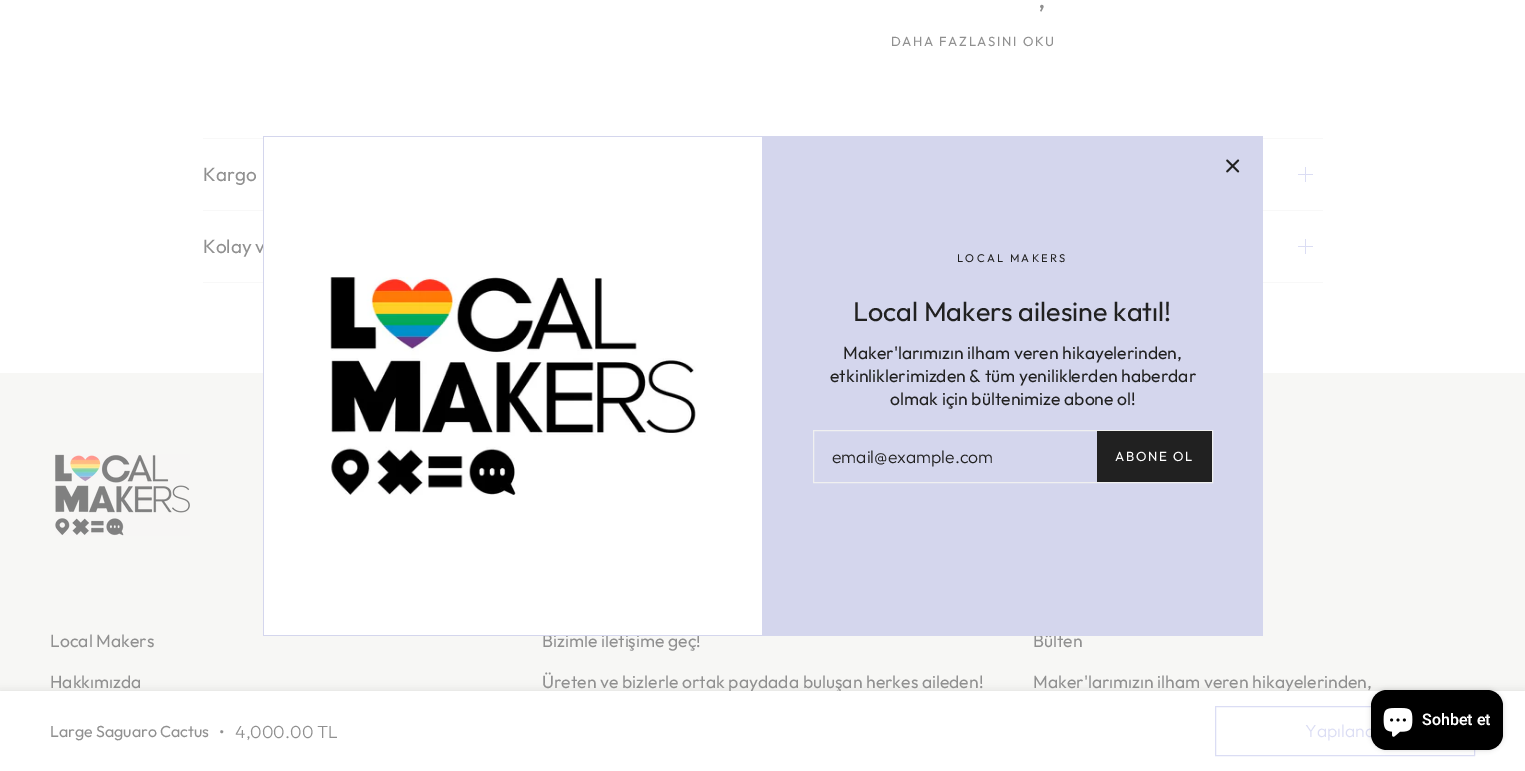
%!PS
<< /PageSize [1525 771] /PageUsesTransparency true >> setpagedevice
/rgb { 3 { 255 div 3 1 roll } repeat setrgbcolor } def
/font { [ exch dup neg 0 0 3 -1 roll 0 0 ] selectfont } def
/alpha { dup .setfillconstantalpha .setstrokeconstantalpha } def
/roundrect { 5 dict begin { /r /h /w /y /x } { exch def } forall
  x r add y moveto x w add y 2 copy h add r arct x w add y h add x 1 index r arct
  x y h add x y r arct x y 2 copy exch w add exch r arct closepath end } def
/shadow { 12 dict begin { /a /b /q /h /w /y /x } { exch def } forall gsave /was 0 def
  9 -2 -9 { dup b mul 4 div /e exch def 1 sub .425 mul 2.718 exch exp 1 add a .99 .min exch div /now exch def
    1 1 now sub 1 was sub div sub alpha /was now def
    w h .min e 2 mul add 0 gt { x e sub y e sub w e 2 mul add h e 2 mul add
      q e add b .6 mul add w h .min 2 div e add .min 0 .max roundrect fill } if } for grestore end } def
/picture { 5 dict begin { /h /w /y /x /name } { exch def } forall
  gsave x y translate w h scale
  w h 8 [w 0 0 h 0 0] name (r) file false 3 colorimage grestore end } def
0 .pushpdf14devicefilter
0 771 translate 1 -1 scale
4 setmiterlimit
255 255 255 rgb
0 0 1525 771 rectfill
247 247 245 rgb
0 373 1525 318 rectfill
128 128 128 rgb
0 691 1525 80 0 5 0.2 shadow
[
  [203 138 1120 1 248 248 248]
  [203 210 1120 1 248 248 248]
  [1298 174 15 1 219 221 244]
  [1305 167 1 15 219 221 244]
  [203 282 1120 1 248 248 248]
  [1298 246 15 1 219 221 244]
  [1305 239 1 15 219 221 244]
] { aload pop rgb rectfill } forall
(img/3.rgb) 55 454 135 82 picture
/Outfit-Regular 27 font
144 144 144 rgb
1038 8 moveto (,) show
/Outfit-Regular 13.25 font
891 46 moveto 1.6 0 (DAHA FAZLASINI OKU) ashow
/Outfit-Regular 19 font
203 181 moveto (Kargo) show
203 253 moveto (Kolay v) show
/Outfit-Regular 17.6 font
[
  [(Local Makers) 50 647]
  [(Hakkımızda) 50 688]
  [(Bizimle iletişime geç!) 542 647]
  [(Üreten ve bizlerle ortak paydada buluşan herkes aileden!) 542 688]
  [(Bülten) 1033 647]
] { aload pop moveto show } forall
212 214 237 rgb
263 136 1000 500 rectfill
(img/1.rgb) 1226 159 14 14 picture
255 255 255 rgb
264 137 498 498 rectfill
(img/2.rgb) 330 277 366 218 picture
240 240 240 rgb
813.5 430.5 399 52 rectstroke
33 33 33 rgb
1097 431 115 51 rectfill
/Outfit-Regular 13.25 font
255 255 255 rgb
1115 461 moveto 1.6 0 (ABONE OL) ashow
/Outfit-Light 17.6 font
33 33 33 rgb
832 463 moveto (email@example.com) show
/Outfit-Regular 17.6 font
[
  [(olmak için bültenimize abone ol!) 890 405]
  [(etkinliklerimizden & tüm yeniliklerden haberdar) 830 382]
  [(Maker'larımızın ilham veren hikayelerinden,) 843 359]
] { aload pop moveto show } forall
/Outfit-Regular 27 font
853 321 moveto (Local Makers ailesine katıl!) show
/Outfit-Regular 11.25 font
957 262 moveto 2.25 0 (LOCAL MAKERS) ashow
/Outfit-Regular 17.6 font
144 144 144 rgb
1033 688 moveto (Maker'larımızın ilham veren hikayelerinden,) show
255 255 255 rgb
0 691 1525 80 rectfill
219 221 244 rgb
1215.5 706.5 259 49 rectstroke
/Outfit-Light 17.6 font
1305 737 moveto (Yapıland) show
144 144 144 rgb
235 738 moveto (4,000.00 TL) show
219 738 moveto (•) show
/Outfit-Regular 16 font
50 737 moveto (Large Saguaro Cactus) show
0 0 0 rgb
1371 690 132 60 16 2.5 0.15 shadow
1371 690 132 60 16 roundrect fill
(img/4.rgb) 1383 708 30 29 picture
/Roboto-SemiBold 16 font
255 255 255 rgb
1422 725 moveto (Sohbet et) show
.poppdf14devicefilter showpage
